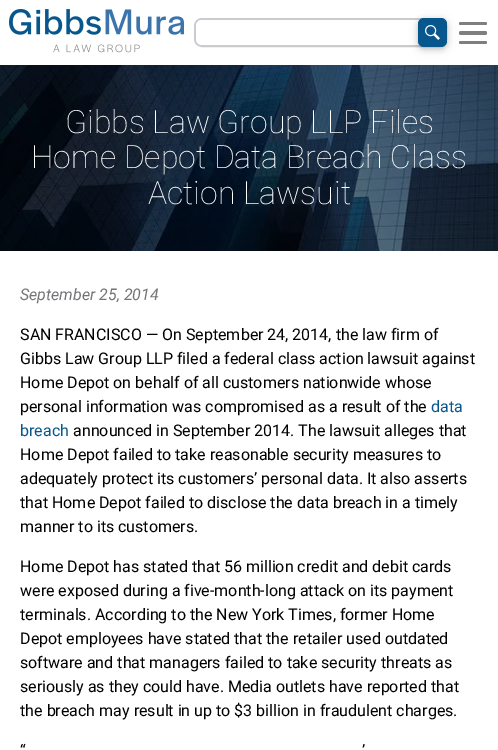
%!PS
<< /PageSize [498 750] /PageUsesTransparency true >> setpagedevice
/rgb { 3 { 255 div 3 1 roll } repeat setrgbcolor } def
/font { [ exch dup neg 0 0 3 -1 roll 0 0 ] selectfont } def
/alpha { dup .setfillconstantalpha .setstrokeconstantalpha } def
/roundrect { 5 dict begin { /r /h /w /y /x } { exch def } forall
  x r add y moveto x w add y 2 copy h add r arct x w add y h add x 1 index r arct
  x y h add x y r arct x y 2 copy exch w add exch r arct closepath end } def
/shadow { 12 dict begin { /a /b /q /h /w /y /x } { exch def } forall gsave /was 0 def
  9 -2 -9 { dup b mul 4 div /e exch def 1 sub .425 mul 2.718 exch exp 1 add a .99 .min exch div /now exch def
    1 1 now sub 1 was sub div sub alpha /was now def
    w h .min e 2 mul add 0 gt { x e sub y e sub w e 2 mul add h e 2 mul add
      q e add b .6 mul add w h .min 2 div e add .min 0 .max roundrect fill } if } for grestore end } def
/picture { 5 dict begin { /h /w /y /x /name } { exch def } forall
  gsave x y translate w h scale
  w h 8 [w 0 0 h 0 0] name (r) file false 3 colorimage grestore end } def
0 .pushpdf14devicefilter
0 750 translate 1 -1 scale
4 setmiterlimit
255 255 255 rgb
0 0 498 750 rectfill
(img/1.rgb) 9 9 175 44 picture
201 204 207 rgb
2 setlinewidth
195 19 251 27 7 roundrect stroke
255 255 255 rgb
196 20 249 25 6 roundrect fill
0 0 0 rgb
418 20 29 29 6 5 0.12 shadow
418 20 29 29 6 2.5 0.16 shadow
7 87 140 rgb
418 18 29 29 6 roundrect fill
(img/2.rgb) 425 25 15 15 picture
127 127 127 rgb
459 22 28 3 1.5 roundrect fill
459 31 28 4 2 roundrect fill
459 41 28 3 1.5 roundrect fill
(img/3.rgb) 0 65 498 186 picture
/Roboto-Thin 32 font
255 255 255 rgb
[
  [(Gibbs Law Group LLP Files) 65 133]
  [(Home Depot Data Breach Class) 31 168]
  [(Action Lawsuit) 148 204]
] { aload pop moveto show } forall
/Roboto-Italic 16 font
115 117 120 rgb
20 300 moveto (September 25, 2014) show
/Roboto-Regular 16 font
0 0 0 rgb
[
  [(SAN FRANCISCO — On September 24, 2014, the law firm of) 20 340]
  [(Gibbs Law Group LLP filed a federal class action lawsuit against) 20 364]
  [(Home Depot on behalf of all customers nationwide whose) 20 388]
  [(personal information was compromised as a result of the) 20 412]
] { aload pop moveto show } forall
7 87 140 rgb
431 412 moveto (data) show
20 436 moveto (breach) show
0 0 0 rgb
[
  [(announced in September 2014. The lawsuit alleges that) 73 436]
  [(Home Depot failed to take reasonable security measures to) 20 460]
  [(adequately protect its customers’ personal data. It also asserts) 20 484]
  [(that Home Depot failed to disclose the data breach in a timely) 20 508]
  [(manner to its customers.) 20 532]
  [(Home Depot has stated that 56 million credit and debit cards) 20 572]
  [(were exposed during a five-month-long attack on its payment) 20 596]
  [(terminals. According to the New York Times, former Home) 20 620]
  [(Depot employees have stated that the retailer used outdated) 20 644]
  [(software and that managers failed to take security threats as) 20 668]
  [(seriously as they could have. Media outlets have reported that) 20 692]
  [(the breach may result in up to $3 billion in fraudulent charges.) 20 716]
  [(“) 20 756]
  [(’) 362 756]
] { aload pop moveto show } forall
.poppdf14devicefilter showpage
